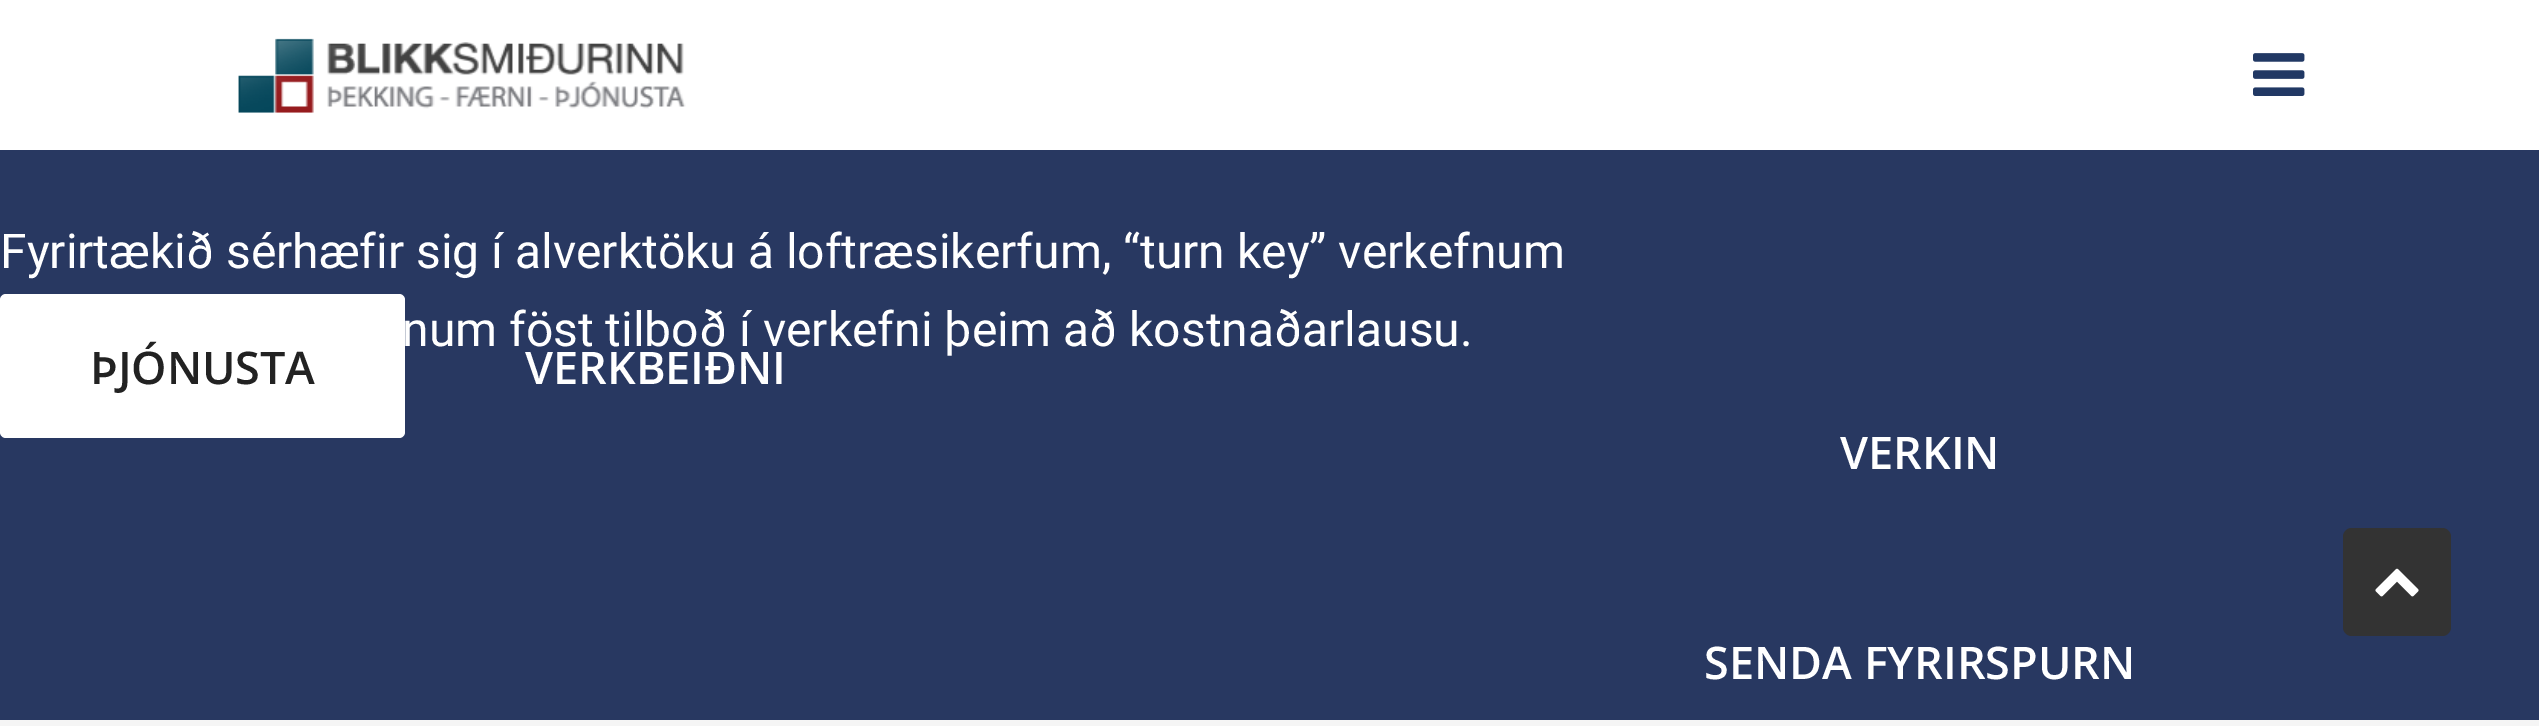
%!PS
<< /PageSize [2539 726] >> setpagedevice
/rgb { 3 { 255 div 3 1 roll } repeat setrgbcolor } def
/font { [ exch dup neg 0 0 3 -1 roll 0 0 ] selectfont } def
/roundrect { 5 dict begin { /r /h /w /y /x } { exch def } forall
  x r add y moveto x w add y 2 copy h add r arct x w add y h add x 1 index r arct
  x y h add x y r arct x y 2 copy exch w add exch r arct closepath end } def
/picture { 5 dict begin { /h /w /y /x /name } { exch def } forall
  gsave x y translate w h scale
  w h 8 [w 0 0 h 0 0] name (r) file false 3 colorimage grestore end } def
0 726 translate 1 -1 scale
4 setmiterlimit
40 56 97 rgb
0 0 2539 726 rectfill
255 255 255 rgb
0 0 2539 150 rectfill
(img/1.rgb) 238 38 448 75 picture
(img/2.rgb) 2253 53 52 43 picture
0 294 405 144 6 roundrect fill
245 245 245 rgb
0 720 2539 6 rectfill
51 51 51 rgb
2343 528 108 108 9 roundrect fill
(img/3.rgb) 2375 568 44 29 picture
/Roboto-Regular 48 font
255 255 255 rgb
0 268 moveto (Fyrirtækið sérhæfir sig í alverktöku á loftræsikerfum, “turn key” verkefnum) show
402 346 moveto (num föst tilboð í verkefni þeim að kostnaðarlausu.) show
/OpenSans-SemiBold 45 font
1840 469 moveto (VERKIN) show
1704 679 moveto (SENDA FYRIRSPURN) show
34 34 34 rgb
90 384 moveto (ÞJÓNUSTA) show
255 255 255 rgb
525 384 moveto (VERKBEIÐNI) show
showpage
